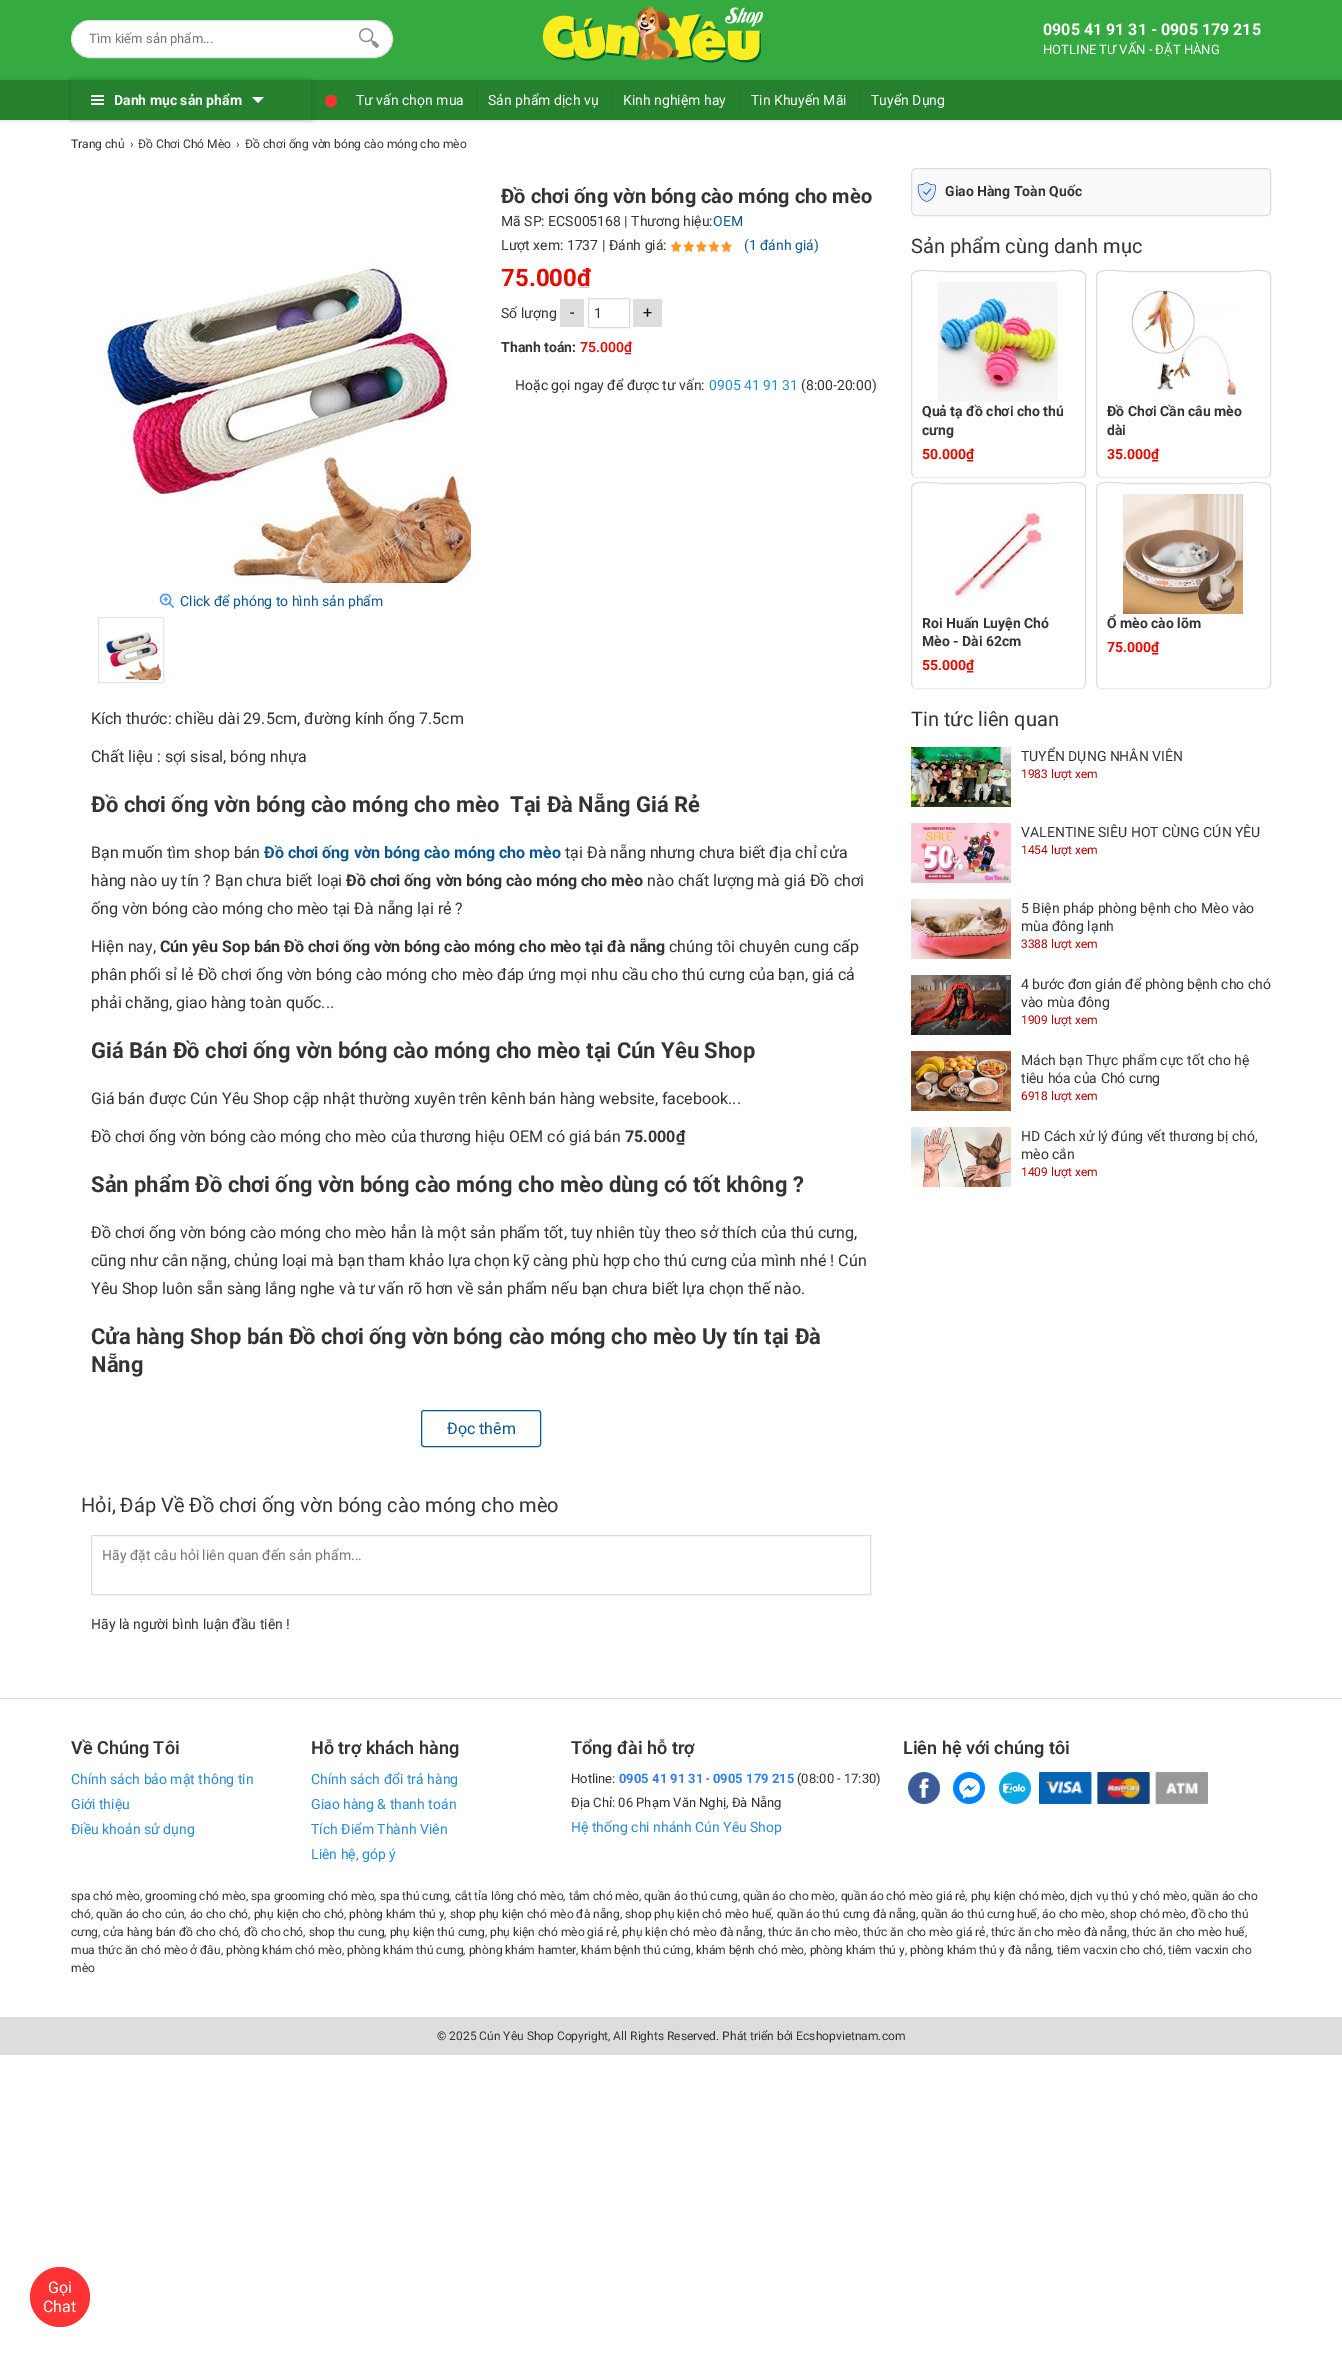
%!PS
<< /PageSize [1342 2367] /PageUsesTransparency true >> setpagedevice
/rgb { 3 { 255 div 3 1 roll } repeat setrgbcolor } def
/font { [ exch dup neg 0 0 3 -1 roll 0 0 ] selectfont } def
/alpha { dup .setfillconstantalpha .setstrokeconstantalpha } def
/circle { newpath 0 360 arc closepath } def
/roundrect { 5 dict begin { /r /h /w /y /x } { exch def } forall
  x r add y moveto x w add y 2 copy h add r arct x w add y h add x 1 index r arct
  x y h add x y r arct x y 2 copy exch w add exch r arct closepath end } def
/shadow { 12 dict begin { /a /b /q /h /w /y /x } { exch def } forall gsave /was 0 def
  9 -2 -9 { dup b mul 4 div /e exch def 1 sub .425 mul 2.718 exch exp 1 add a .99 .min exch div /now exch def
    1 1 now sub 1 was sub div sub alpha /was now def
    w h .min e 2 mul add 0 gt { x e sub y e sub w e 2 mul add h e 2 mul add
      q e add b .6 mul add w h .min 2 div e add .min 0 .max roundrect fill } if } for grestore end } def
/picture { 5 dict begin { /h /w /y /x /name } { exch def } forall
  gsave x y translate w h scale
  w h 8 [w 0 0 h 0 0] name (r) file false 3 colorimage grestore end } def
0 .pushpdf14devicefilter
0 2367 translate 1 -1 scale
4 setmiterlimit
255 255 255 rgb
0 0 1342 2367 rectfill
52 170 64 rgb
0 0 1342 80 rectfill
255 255 255 rgb
71.5 20.5 321 37 18.5 roundrect gsave fill grestore
221 221 221 rgb
stroke
255 255 255 rgb
84 21 4 1 rectfill
(img/1.rgb) 359 28 20 20 picture
(img/2.rgb) 543 6 220 57 picture
0 0 0 rgb
0 81 1342 40 0 2 0.12 shadow
37 129 46 rgb
0 80 1342 40 rectfill
gsave
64 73 moveto 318 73 lineto 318 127 lineto 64 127 lineto closepath 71 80 moveto 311 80 lineto 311 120 lineto 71 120 lineto closepath eoclip newpath
0 0 0 rgb
71 80 240 40 0 2 0.25 shadow
grestore
255 255 255 rgb
91 95 13 2 1 roundrect fill
91 99 13 2 1 roundrect fill
91 103 13 2 1 roundrect fill
252 97 moveto 264 97 lineto 258 103 lineto closepath fill
255 51 51 rgb
331 101 5 circle fill
0.2 alpha
238 46 36 rgb
331 101 5.5 circle fill
1 alpha
255 51 51 rgb
331 101 5.5 circle stroke
[
  [477 85 1 30 33 116 41]
  [612 85 1 30 33 116 41]
  [740 85 1 30 33 116 41]
  [860 85 1 30 33 116 41]
] { aload pop rgb rectfill } forall
(img/3.rgb) 670 240 62 12 picture
221 221 221 rgb
560 299 24 28 rectfill
588.5 298.5 41 29 rectstroke
633 299 29 28 rectfill
(img/4.rgb) 103 263 368 320 picture
(img/5.rgb) 159 593 15 15 picture
230 230 230 rgb
98.5 617.5 65 65 rectstroke
(img/6.rgb) 106 631 55 49 picture
11 86 144 rgb
421.5 1410.5 119 36 2.5 roundrect stroke
221 221 221 rgb
91.5 1535.5 779 59 rectstroke
250 250 250 rgb
911.5 168.5 359 47 4.5 roundrect gsave fill grestore
221 221 221 rgb
stroke
(img/7.rgb) 917 182 19 20 picture
236 236 236 rgb
1084 476 moveto 1083.5 477 1082 477.5 1081 477.5 curveto 916 477.5 lineto 915 477.5 913.5 477 913 476 curveto stroke
221 221 221 rgb
913 476 moveto 911.5 473 lineto 911.5 276 lineto 911.5 267 935.5 271.5 943.5 271.5 curveto 1053.5 271.5 lineto 1061.5 271.5 1085.5 267 1085.5 276 curveto 1085.5 473 lineto 1084 476 lineto stroke
(img/8.rgb) 938 282 120 120 picture
236 236 236 rgb
1269 476 moveto 1268.5 477 1267 477.5 1266 477.5 curveto 1101 477.5 lineto 1100 477.5 1098.5 477 1098 476 curveto stroke
221 221 221 rgb
1098 476 moveto 1096.5 473 lineto 1096.5 276 lineto 1096.5 267 1120.5 271.5 1128.5 271.5 curveto 1238.5 271.5 lineto 1246.5 271.5 1270.5 267 1270.5 276 curveto 1270.5 473 lineto 1269 476 lineto stroke
(img/9.rgb) 1131 289 109 107 picture
236 236 236 rgb
1084 687 moveto 1083.5 688 1082 688.5 1081 688.5 curveto 916 688.5 lineto 915 688.5 913.5 688 913 687 curveto stroke
221 221 221 rgb
913 687 moveto 911.5 684 lineto 911.5 488 lineto 911.5 479 935.5 483.5 943.5 483.5 curveto 1053.5 483.5 lineto 1061.5 483.5 1085.5 479 1085.5 488 curveto 1085.5 684 lineto 1084 687 lineto stroke
(img/10.rgb) 948 509 97 92 picture
236 236 236 rgb
1269 687 moveto 1268.5 688 1267 688.5 1266 688.5 curveto 1101 688.5 lineto 1100 688.5 1098.5 688 1098 687 curveto stroke
221 221 221 rgb
1098 687 moveto 1096.5 684 lineto 1096.5 488 lineto 1096.5 479 1120.5 483.5 1128.5 483.5 curveto 1238.5 483.5 lineto 1246.5 483.5 1270.5 479 1270.5 488 curveto 1270.5 684 lineto 1269 687 lineto stroke
(img/11.rgb) 1123 494 120 120 picture
(img/12.rgb) 911 747 100 60 picture
(img/13.rgb) 911 823 100 60 picture
(img/14.rgb) 911 899 100 60 picture
(img/15.rgb) 911 975 100 60 picture
(img/16.rgb) 911 1051 100 60 picture
(img/17.rgb) 911 1127 100 60 picture
226 226 226 rgb
0 1698 1342 1 rectfill
(img/18.rgb) 908 1772 32 32 picture
(img/19.rgb) 953 1772 32 32 picture
(img/20.rgb) 999 1772 32 32 picture
(img/21.rgb) 1039 1772 169 32 picture
221 221 221 rgb
0 2017 1342 38 rectfill
255 51 51 rgb
60 2297 30 circle fill
/Roboto-Regular 13 font
117 117 117 rgb
89 43 moveto (Tìm kiếm sản phẩm...) show
/Roboto-Bold 16 font
255 255 255 rgb
1043 35 moveto (0905 41 91 31 - 0905 179 215) show
/Roboto-Regular 13 font
1043 54 moveto (HOTLINE TƯ VẤN - ĐẶT HÀNG) show
/Roboto-Bold 14 font
114 105 moveto (Danh mục sản phẩm) show
/Roboto-Regular 14 font
[
  [(Tư vấn chọn mua) 356 105]
  [(Sản phẩm dịch vụ) 488 105]
  [(Kinh nghiệm hay) 623 105]
  [(Tin Khuyến Mãi) 751 105]
  [(Tuyển Dụng) 871 105]
] { aload pop moveto show } forall
/Roboto-Regular 12 font
51 51 51 rgb
[
  [(Trang chủ) 71 148]
  [(›) 130 148]
  [(Đồ Chơi Chó Mèo) 138 148]
  [(›) 236 148]
  [(Đồ chơi ống vờn bóng cào móng cho mèo) 245 148]
] { aload pop moveto show } forall
/Roboto-Bold 20 font
501 203 moveto (Đồ chơi ống vờn bóng cào móng cho mèo) show
/Roboto-Regular 14 font
501 226 moveto (Mã SP: ECS005168 | Thương hiệu:) show
11 86 144 rgb
713 226 moveto (OEM) show
51 51 51 rgb
501 250 moveto (Lượt xem: 1737 | Đánh giá:) show
11 86 144 rgb
744 250 moveto (\(1 đánh giá\)) show
gsave
501 268 90 20 rectclip
/Roboto-Bold 24 font
225 12 0 rgb
501 286 moveto (75.000₫) show
grestore
51 51 51 rgb
501 318 moveto (Số lượng) show
/Roboto-Regular 16 font
17 17 17 rgb
570 318 moveto (-) show
/Roboto-Regular 14 font
51 51 51 rgb
594 318 moveto (1) show
/Roboto-Regular 16 font
17 17 17 rgb
643 318 moveto (+) show
/Roboto-Bold 14 font
51 51 51 rgb
501 352 moveto (Thanh toán:) show
/Roboto-SemiBold 14 font
225 12 0 rgb
580 352 moveto (75.000₫) show
/Roboto-Regular 14 font
51 51 51 rgb
515 390 moveto (Hoặc gọi ngay để được tư vấn:) show
40 138 214 rgb
709 390 moveto (0905 41 91 31) show
51 51 51 rgb
801 390 moveto (\(8:00-20:00\)) show
11 86 144 rgb
180 606 moveto (Click để phóng to hình sản phẩm) show
/Roboto-Regular 16 font
51 51 51 rgb
91 724 moveto (Kích thước: chiều dài 29.5cm, đường kính ống 7.5cm) show
91 762 moveto (Chất liệu : sợi sisal, bóng nhựa) show
/Roboto-Bold 22 font
91 812 moveto (Đồ chơi ống vờn bóng cào móng cho mèo  Tại Đà Nẵng Giá Rẻ) show
/Roboto-Regular 16 font
91 858 moveto (Bạn muốn tìm shop bán) show
/Roboto-Bold 16 font
11 86 144 rgb
264 858 moveto (Đồ chơi ống vờn bóng cào móng cho mèo) show
/Roboto-Regular 16 font
51 51 51 rgb
565 858 moveto (tại Đà nẵng nhưng chưa biết địa chỉ cửa) show
91 886 moveto (hàng nào uy tín ? Bạn chưa biết loại) show
/Roboto-Bold 16 font
346 886 moveto (Đồ chơi ống vờn bóng cào móng cho mèo) show
/Roboto-Regular 16 font
[
  [(nào chất lượng mà giá Đồ chơi) 647 886]
  [(ống vờn bóng cào móng cho mèo tại Đà nẵng lại rẻ ?) 91 914]
  [(Hiện nay,) 91 952]
] { aload pop moveto show } forall
/Roboto-Bold 16 font
160 952 moveto (Cún yêu Sop bán Đồ chơi ống vờn bóng cào móng cho mèo tại đà nẵng) show
/Roboto-Regular 16 font
[
  [(chúng tôi chuyên cung cấp) 669 952]
  [(phân phối sỉ lẻ Đồ chơi ống vờn bóng cào móng cho mèo đáp ứng mọi nhu cầu cho thú cưng của bạn, giá cả) 91 980]
  [(phải chăng, giao hàng toàn quốc...) 91 1008]
] { aload pop moveto show } forall
/Roboto-Bold 22 font
91 1058 moveto (Giá Bán Đồ chơi ống vờn bóng cào móng cho mèo tại Cún Yêu Shop) show
/Roboto-Regular 16 font
91 1104 moveto (Giá bán được Cún Yêu Shop cập nhật thường xuyên trên kênh bán hàng website, facebook...) show
91 1142 moveto (Đồ chơi ống vờn bóng cào móng cho mèo của thương hiệu OEM có giá bán) show
/Roboto-Bold 16 font
625 1142 moveto (75.000₫) show
/Roboto-Bold 22 font
91 1192 moveto (Sản phẩm Đồ chơi ống vờn bóng cào móng cho mèo dùng có tốt không ?) show
/Roboto-Regular 16 font
[
  [(Đồ chơi ống vờn bóng cào móng cho mèo hẳn là một sản phẩm tốt, tuy nhiên tùy theo sở thích của thú cưng,) 91 1238]
  [(cũng như cân nặng, chủng loại mà bạn tham khảo lựa chọn kỹ càng phù hợp cho thú cưng của mình nhé ! Cún) 91 1266]
  [(Yêu Shop luôn sẵn sàng lắng nghe và tư vấn rõ hơn về sản phẩm nếu bạn chưa biết lựa chọn thế nào.) 91 1294]
] { aload pop moveto show } forall
/Roboto-Bold 22 font
91 1344 moveto (Cửa hàng Shop bán Đồ chơi ống vờn bóng cào móng cho mèo Uy tín tại Đà) show
91 1372 moveto (Nẵng) show
/Roboto-Regular 16 font
11 86 144 rgb
447 1434 moveto (Đọc thêm) show
/Roboto-Regular 20 font
51 51 51 rgb
81 1512 moveto (Hỏi, Đáp Về Đồ chơi ống vờn bóng cào móng cho mèo) show
/Roboto-Regular 14 font
117 117 117 rgb
102 1560 moveto (Hãy đặt câu hỏi liên quan đến sản phẩm...) show
51 51 51 rgb
91 1629 moveto (Hãy là người bình luận đầu tiên !) show
/Roboto-Bold 14 font
945 196 moveto (Giao Hàng Toàn Quốc) show
/Roboto-Regular 20 font
911 253 moveto (Sản phẩm cùng danh mục) show
/Roboto-Bold 14 font
922 416 moveto (Quả tạ đồ chơi cho thú) show
922 435 moveto (cưng) show
225 12 0 rgb
922 459 moveto (50.000₫) show
51 51 51 rgb
1107 416 moveto (Đồ Chơi Cần câu mèo) show
1107 435 moveto (dài) show
225 12 0 rgb
1107 459 moveto (35.000₫) show
51 51 51 rgb
922 628 moveto (Roi Huấn Luyện Chó) show
922 646 moveto (Mèo - Dài 62cm) show
225 12 0 rgb
922 670 moveto (55.000₫) show
51 51 51 rgb
1107 628 moveto (Ổ mèo cào lõm) show
225 12 0 rgb
1107 652 moveto (75.000₫) show
/Roboto-Regular 20 font
51 51 51 rgb
911 726 moveto (Tin tức liên quan) show
/Roboto-Regular 14 font
1021 761 moveto (TUYỂN DỤNG NHÂN VIÊN) show
/Roboto-Regular 12 font
177 0 0 rgb
1021 778 moveto (1983 lượt xem) show
/Roboto-Regular 14 font
51 51 51 rgb
1021 837 moveto (VALENTINE SIÊU HOT CÙNG CÚN YÊU) show
/Roboto-Regular 12 font
177 0 0 rgb
1021 854 moveto (1454 lượt xem) show
/Roboto-Regular 14 font
51 51 51 rgb
1021 913 moveto (5 Biện pháp phòng bệnh cho Mèo vào) show
1021 931 moveto (mùa đông lạnh) show
/Roboto-Regular 12 font
177 0 0 rgb
1021 948 moveto (3388 lượt xem) show
/Roboto-Regular 14 font
51 51 51 rgb
1021 989 moveto (4 bước đơn giản để phòng bệnh cho chó) show
1021 1007 moveto (vào mùa đông) show
/Roboto-Regular 12 font
177 0 0 rgb
1021 1024 moveto (1909 lượt xem) show
/Roboto-Regular 14 font
51 51 51 rgb
1021 1065 moveto (Mách bạn Thực phẩm cực tốt cho hệ) show
1021 1083 moveto (tiêu hóa của Chó cưng) show
/Roboto-Regular 12 font
177 0 0 rgb
1021 1100 moveto (6918 lượt xem) show
/Roboto-Regular 14 font
51 51 51 rgb
1021 1141 moveto (HD Cách xử lý đúng vết thương bị chó,) show
1021 1159 moveto (mèo cắn) show
/Roboto-Regular 12 font
177 0 0 rgb
1021 1176 moveto (1409 lượt xem) show
/Roboto-SemiBold 18 font
51 51 51 rgb
71 1754 moveto (Về Chúng Tôi) show
/Roboto-Regular 14 font
40 138 214 rgb
[
  [(Chính sách bảo mật thông tin) 71 1784]
  [(Giới thiệu) 71 1809]
  [(Điều khoản sử dụng) 71 1834]
] { aload pop moveto show } forall
/Roboto-SemiBold 18 font
51 51 51 rgb
311 1754 moveto (Hỗ trợ khách hàng) show
/Roboto-Regular 14 font
40 138 214 rgb
[
  [(Chính sách đổi trả hàng) 311 1784]
  [(Giao hàng & thanh toán) 311 1809]
  [(Tích Điểm Thành Viên) 311 1834]
  [(Liên hệ, góp ý) 311 1859]
] { aload pop moveto show } forall
/Roboto-SemiBold 18 font
51 51 51 rgb
571 1754 moveto (Tổng đài hỗ trợ) show
/Roboto-Regular 13 font
571 1783 moveto (Hotline:) show
/Roboto-Bold 13 font
47 128 237 rgb
619 1783 moveto (0905 41 91 31) show
/Roboto-Regular 13 font
51 51 51 rgb
706 1783 moveto (-) show
/Roboto-Bold 13 font
47 128 237 rgb
713 1783 moveto (0905 179 215) show
/Roboto-Regular 13 font
51 51 51 rgb
797 1783 moveto (\(08:00 - 17:30\)) show
571 1807 moveto (Địa Chỉ: 06 Phạm Văn Nghị, Đà Nẵng) show
/Roboto-Regular 14 font
40 138 214 rgb
571 1832 moveto (Hệ thống chi nhánh Cún Yêu Shop) show
/Roboto-SemiBold 18 font
51 51 51 rgb
903 1754 moveto (Liên hệ với chúng tôi) show
/Roboto-Regular 12 font
[
  [(spa chó mèo, grooming chó mèo, spa grooming chó mèo, spa thú cưng, cắt tỉa lông chó mèo, tắm chó mèo, quần áo thú cưng, quần áo cho mèo, quần áo chó mèo giá rẻ, phụ kiện chó mèo, dịch vụ thú y chó mèo, quần áo cho) 71 1900]
  [(chó, quần áo cho cún, áo cho chó, phụ kiện cho chó, phòng khám thú y, shop phụ kiện chó mèo đà nẵng, shop phụ kiện chó mèo huế, quần áo thú cưng đà nẵng, quần áo thú cưng huế, áo cho mèo, shop chó mèo, đồ cho thú) 71 1918]
  [(cưng, cửa hàng bán đồ cho chó, đồ cho chó, shop thu cung, phụ kiện thú cưng, phụ kiện chó mèo giá rẻ, phụ kiện chó mèo đà nẵng, thức ăn cho mèo, thức ăn cho mèo giá rẻ, thức ăn cho mèo đà nẵng, thức ăn cho mèo huế,) 71 1936]
  [(mua thức ăn chó mèo ở đâu, phòng khám chó mèo, phòng khám thú cưng, phòng khám hamter, khám bệnh thú cứng, khám bệnh chó mèo, phòng khám thú y, phòng khám thú y đà nẵng, tiêm vacxin cho chó, tiêm vacxin cho) 71 1954]
  [(mèo) 71 1972]
  [(© 2025 Cún Yêu Shop Copyright, All Rights Reserved. Phát triển bởi Ecshopvietnam.com) 437 2040]
] { aload pop moveto show } forall
/Roboto-Regular 16 font
255 255 255 rgb
48 2293 moveto (Gọi) show
43 2312 moveto (Chat) show
.poppdf14devicefilter showpage
